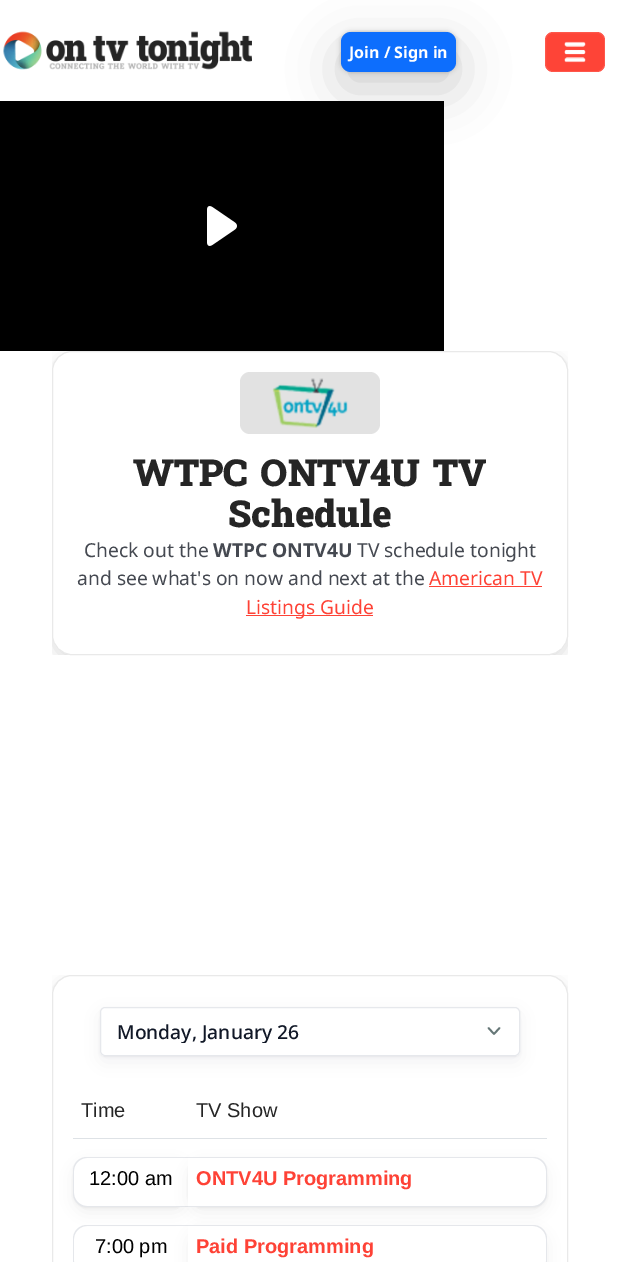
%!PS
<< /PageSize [619 1262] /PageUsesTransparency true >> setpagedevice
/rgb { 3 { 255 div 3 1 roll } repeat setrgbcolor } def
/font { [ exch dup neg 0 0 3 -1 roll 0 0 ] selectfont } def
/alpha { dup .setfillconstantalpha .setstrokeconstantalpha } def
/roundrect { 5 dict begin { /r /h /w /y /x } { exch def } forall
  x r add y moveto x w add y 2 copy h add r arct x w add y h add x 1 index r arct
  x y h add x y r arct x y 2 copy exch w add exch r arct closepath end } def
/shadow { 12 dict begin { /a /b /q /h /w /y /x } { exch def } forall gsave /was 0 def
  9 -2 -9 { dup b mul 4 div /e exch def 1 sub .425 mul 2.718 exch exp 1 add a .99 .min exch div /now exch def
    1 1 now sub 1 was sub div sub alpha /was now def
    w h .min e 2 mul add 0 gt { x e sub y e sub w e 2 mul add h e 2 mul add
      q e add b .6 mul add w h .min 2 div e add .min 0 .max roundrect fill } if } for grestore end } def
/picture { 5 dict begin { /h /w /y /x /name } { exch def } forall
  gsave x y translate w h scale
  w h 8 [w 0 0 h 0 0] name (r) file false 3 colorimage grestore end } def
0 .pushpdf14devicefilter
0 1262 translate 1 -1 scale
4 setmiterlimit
255 255 255 rgb
0 0 619 1262 rectfill
(img/1.rgb) 3 31 249 39 picture
0 0 0 rgb
341 49 115 40 10 25 0.19 shadow
341 32 115 40 10 2.5 0.24 shadow
13 110 253 rgb
341 32 115 40 10 roundrect fill
254 68 55 rgb
545 32 60 40 8 roundrect fill
0.1 alpha
255 255 255 rgb
545.5 32.5 59 39 7.5 roundrect stroke
1 alpha
(img/2.rgb) 566 45 18 14 picture
(img/3.rgb) 564 41 22 22 picture
gsave
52 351 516 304 rectclip
74 74 74 rgb
52 356 516 304 20 7.5 0.2 shadow
grestore
0 0 0 rgb
0 101 444 250 rectfill
(img/4.rgb) 207 206 30 40 picture
255 255 255 rgb
52.5 351.5 515 303 19.5 roundrect gsave fill grestore
233 233 233 rgb
stroke
226 226 226 rgb
240 372 140 62 10 roundrect fill
(img/5.rgb) 272 378 76 50 picture
254 66 54 rgb
429 586 113 1 rectfill
246 615 127 1 rectfill
gsave
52 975 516 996 rectclip
74 74 74 rgb
52 980 516 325 20 7.5 0.2 shadow
grestore
255 255 255 rgb
52.5 975.5 515 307 19.5 roundrect gsave fill grestore
233 233 233 rgb
stroke
17 24 39 rgb
100 1008 420 49 5 1 0.05 shadow
100 1013 420 49 5 9 0.06 shadow
255 255 255 rgb
100 1007 420 49 5 roundrect fill
102 119 119 rgb
1.8 setlinewidth
1 setlinecap
1 setlinejoin
488.5 1028 moveto 494 1034 lineto 499.5 1028 lineto stroke
230 232 236 rgb
1 setlinewidth
0 setlinecap
0 setlinejoin
100.5 1007.5 419 48 4.5 roundrect stroke
222 226 230 rgb
73 1138 474 1 rectfill
gsave
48 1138 moveto 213 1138 lineto 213 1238 lineto 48 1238 lineto closepath 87 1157 moveto 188 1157 lineto 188 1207 lineto 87 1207 lineto 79.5 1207 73 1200.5 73 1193 curveto 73 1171 lineto 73 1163.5 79.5 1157 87 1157 curveto closepath eoclip newpath
0 0 0 rgb
73 1163 115 50 14 8 0.06 shadow
grestore
gsave
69 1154 moveto 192 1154 lineto 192 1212 lineto 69 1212 lineto closepath 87 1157 moveto 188 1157 lineto 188 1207 lineto 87 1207 lineto 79.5 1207 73 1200.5 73 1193 curveto 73 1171 lineto 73 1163.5 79.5 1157 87 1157 curveto closepath eoclip newpath
0 0 0 rgb
73 1158 115 50 14 1 0.06 shadow
grestore
229 231 235 rgb
87 1157 moveto 188 1157 lineto 188 1207 lineto 87 1207 lineto 79 1207 73 1201 73 1193 curveto 73 1171 lineto 73 1163 79 1157 87 1157 curveto closepath 87 1158 moveto 188 1158 lineto 188 1206 lineto 87 1206 lineto 80 1206 74 1200 74 1193 curveto 74 1171 lineto 74 1164 80 1158 87 1158 curveto closepath eofill
0 0 0 rgb
188 1163 359 50 14 8 0.06 shadow
188 1158 359 50 14 1 0.06 shadow
255 255 255 rgb
188 1158 moveto 533 1158 lineto 540 1158 546 1164 546 1171 curveto 546 1193 lineto 546 1200 540 1206 533 1206 curveto 188 1206 lineto closepath fill
229 231 235 rgb
188 1157 moveto 533 1157 lineto 541 1157 547 1163 547 1171 curveto 547 1193 lineto 547 1201 541 1207 533 1207 curveto 188 1207 lineto closepath 188 1158 moveto 533 1158 lineto 540 1158 546 1164 546 1171 curveto 546 1193 lineto 546 1200 540 1206 533 1206 curveto 188 1206 lineto closepath eofill
87 1225 moveto 188 1225 lineto 188 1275 lineto 87 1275 lineto 79 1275 73 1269 73 1261 curveto 73 1239 lineto 73 1231 79 1225 87 1225 curveto closepath 87 1226 moveto 188 1226 lineto 188 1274 lineto 87 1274 lineto 80 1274 74 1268 74 1261 curveto 74 1239 lineto 74 1232 80 1226 87 1226 curveto closepath eofill
0 0 0 rgb
188 1231 359 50 14 8 0.06 shadow
255 255 255 rgb
188 1226 moveto 533 1226 lineto 540 1226 546 1232 546 1239 curveto 546 1261 lineto 546 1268 540 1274 533 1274 curveto 188 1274 lineto closepath fill
229 231 235 rgb
188 1225 moveto 533 1225 lineto 541 1225 547 1231 547 1239 curveto 547 1261 lineto 547 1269 541 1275 533 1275 curveto 188 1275 lineto closepath 188 1226 moveto 533 1226 lineto 540 1226 546 1232 546 1239 curveto 546 1261 lineto 546 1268 540 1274 533 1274 curveto 188 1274 lineto closepath eofill
/NotoSans-Bold 16 font
255 255 255 rgb
349 58 moveto (Join / Sign in) show
/Suwannaphum-Black 37.25 font
37 37 37 rgb
133 486 moveto (WTPC ONTV4U TV) show
228 527 moveto (Schedule) show
/NotoSans-Regular 19.25 font
69 73 81 rgb
84 557 moveto (Check out the) show
/NotoSans-Bold 19.25 font
213 557 moveto (WTPC ONTV4U) show
/NotoSans-Regular 19.25 font
357 557 moveto (TV schedule tonight) show
77 585 moveto (and see what's on now and next at the) show
254 66 54 rgb
429 585 moveto (American TV) show
246 614 moveto (Listings Guide) show
gsave
117 1020 358 23 rectclip
/NotoSans-Medium 19.25 font
17 24 39 rgb
117 1039 moveto (Monday, January 26) show
grestore
/LiberationSans-Regular 20 font
37 37 37 rgb
81 1117 moveto (Time) show
196 1117 moveto (TV Show) show
0 0 0 rgb
89 1185 moveto (12:00 am) show
/LiberationSans-Bold 20 font
254 66 54 rgb
196 1185 moveto (ONTV4U Programming) show
/LiberationSans-Regular 20 font
0 0 0 rgb
95 1253 moveto (7:00 pm) show
/LiberationSans-Bold 20 font
254 66 54 rgb
196 1253 moveto (Paid Programming) show
.poppdf14devicefilter showpage
